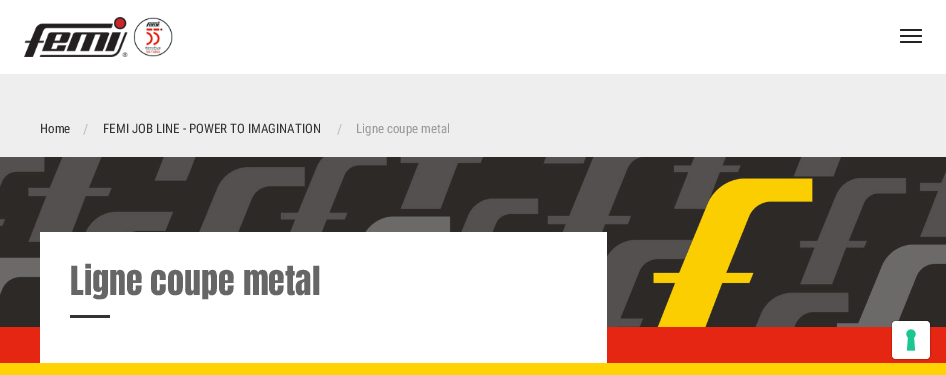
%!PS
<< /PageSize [946 375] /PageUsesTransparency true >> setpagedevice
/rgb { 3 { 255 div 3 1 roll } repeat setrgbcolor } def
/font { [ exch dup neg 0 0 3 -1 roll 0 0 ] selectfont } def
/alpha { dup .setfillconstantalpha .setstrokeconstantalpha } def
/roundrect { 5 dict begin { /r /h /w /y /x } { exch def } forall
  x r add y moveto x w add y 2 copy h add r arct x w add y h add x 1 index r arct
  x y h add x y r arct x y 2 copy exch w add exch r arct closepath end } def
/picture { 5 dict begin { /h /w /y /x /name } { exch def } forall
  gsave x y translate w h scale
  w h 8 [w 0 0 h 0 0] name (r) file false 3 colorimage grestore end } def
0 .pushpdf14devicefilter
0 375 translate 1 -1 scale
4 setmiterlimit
229 38 19 rgb
0 0 946 375 rectfill
255 255 255 rgb
0 0 946 74 rectfill
(img/1.rgb) 24 17 149 40 picture
35 35 35 rgb
900 29 22 2 1 roundrect fill
900 35 22 2 1 roundrect fill
900 41 22 2 1 roundrect fill
238 238 238 rgb
0 74 946 83 rectfill
(img/2.rgb) 0 157 946 170 picture
255 255 255 rgb
40 232 567 131 rectfill
51 51 51 rgb
70 315 40 3 rectfill
0.15 alpha
0 0 0 rgb
891.5 320.5 39 39 4.5 roundrect stroke
1 alpha
255 255 255 rgb
892 321 38 38 4 roundrect fill
(img/3.rgb) 906 329 10 22 picture
255 210 4 rgb
0 363 946 12 rectfill
/RobotoCondensed-Regular 13 font
51 51 51 rgb
40 133 moveto (Home) show
/RobotoCondensed-Regular 14 font
187 187 187 rgb
83 134 moveto (/) show
/RobotoCondensed-Regular 13 font
51 51 51 rgb
103 133 moveto (FEMI JOB LINE - POWER TO IMAGINATION) show
/RobotoCondensed-Regular 14 font
187 187 187 rgb
337 134 moveto (/) show
/RobotoCondensed-Regular 13 font
153 153 153 rgb
356 133 moveto (Ligne coupe metal) show
/Anton-Regular 34 font
102 102 102 rgb
70 295 moveto (Ligne coupe metal) show
.poppdf14devicefilter showpage
